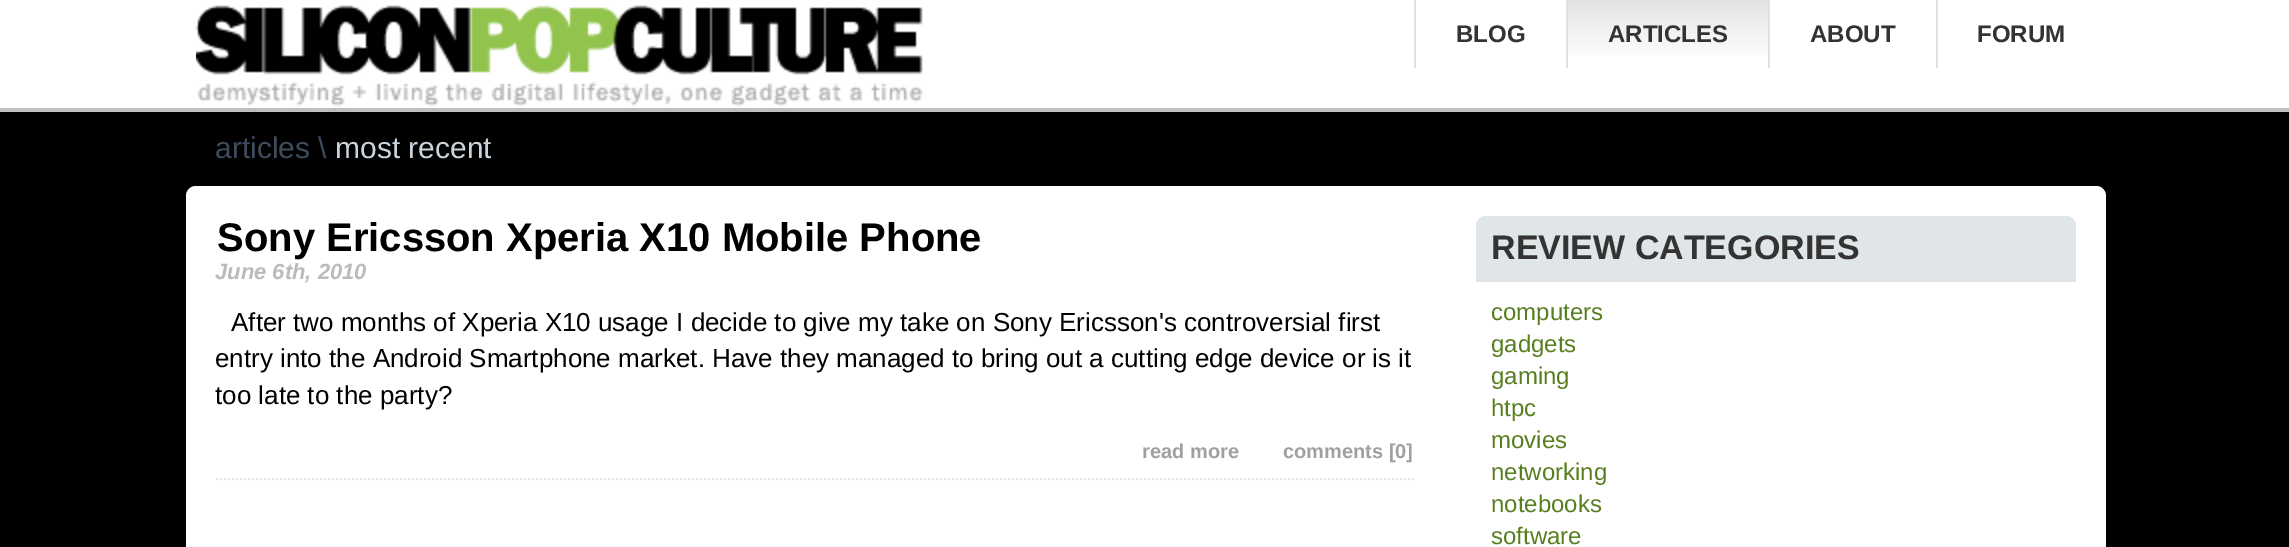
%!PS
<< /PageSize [2289 547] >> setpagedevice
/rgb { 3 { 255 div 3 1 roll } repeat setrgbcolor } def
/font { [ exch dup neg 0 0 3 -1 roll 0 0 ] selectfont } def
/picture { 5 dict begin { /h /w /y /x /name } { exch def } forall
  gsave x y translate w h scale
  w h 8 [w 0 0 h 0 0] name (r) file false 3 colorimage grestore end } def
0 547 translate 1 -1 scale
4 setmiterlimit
0 0 0 rgb
0 0 2289 547 rectfill
255 255 255 rgb
0 0 2289 108 rectfill
191 191 191 rgb
0 108 2289 4 rectfill
(img/1.rgb) 196 5 727 102 picture
224 224 224 rgb
1414 0 2 68 rectfill
1566 0 2 68 rectfill
(img/2.rgb) 1568 0 200 56 picture
1768 0 2 68 rectfill
1936 0 2 68 rectfill
255 255 255 rgb
196 186 moveto 2096 186 lineto 2101.5 186 2106 190.5 2106 196 curveto 2106 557 lineto 186 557 lineto 186 196 lineto 186 190.5 190.5 186 196 186 curveto closepath fill
224 229 232 rgb
2 setlinewidth
[2 2] 0 setdash
216 479 moveto 1416 479 lineto stroke
1486 216 moveto 2066 216 lineto 2071.5 216 2076 220.5 2076 226 curveto 2076 282 lineto 1476 282 lineto 1476 226 lineto 1476 220.5 1480.5 216 1486 216 curveto closepath fill
/LiberationSans-Bold 24 font
51 51 51 rgb
[
  [(BLOG) 1456 42]
  [(ARTICLES) 1608 42]
  [(ABOUT) 1810 42]
  [(FORUM) 1977 42]
] { aload pop moveto show } forall
/LiberationSans-Regular 30 font
62 76 93 rgb
215 158 moveto (articles \\) show
203 211 220 rgb
335 158 moveto (most recent) show
/LiberationSans-Bold 40 font
0 0 0 rgb
217 251 moveto (Sony Ericsson Xperia X10 Mobile Phone) show
/LiberationSans-BoldItalic 22 font
187 187 187 rgb
215 279 moveto (June 6th, 2010) show
/LiberationSans-Regular 26 font
0 0 0 rgb
[
  [(After two months of Xperia X10 usage I decide to give my take on Sony Ericsson's controversial first) 231 331]
  [(entry into the Android Smartphone market. Have they managed to bring out a cutting edge device or is it) 215 367]
  [(too late to the party?) 215 404]
] { aload pop moveto show } forall
/LiberationSans-Bold 20 font
160 160 160 rgb
1142 458 moveto (read more) show
1283 458 moveto (comments [0]) show
/LiberationSans-Bold 34 font
51 51 51 rgb
1491 259 moveto (REVIEW CATEGORIES) show
/LiberationSans-Regular 24 font
88 127 31 rgb
[
  [(computers) 1491 320]
  [(gadgets) 1491 352]
  [(gaming) 1491 384]
  [(htpc) 1491 416]
  [(movies) 1491 448]
  [(networking) 1491 480]
  [(notebooks) 1491 512]
  [(software) 1491 544]
] { aload pop moveto show } forall
showpage
